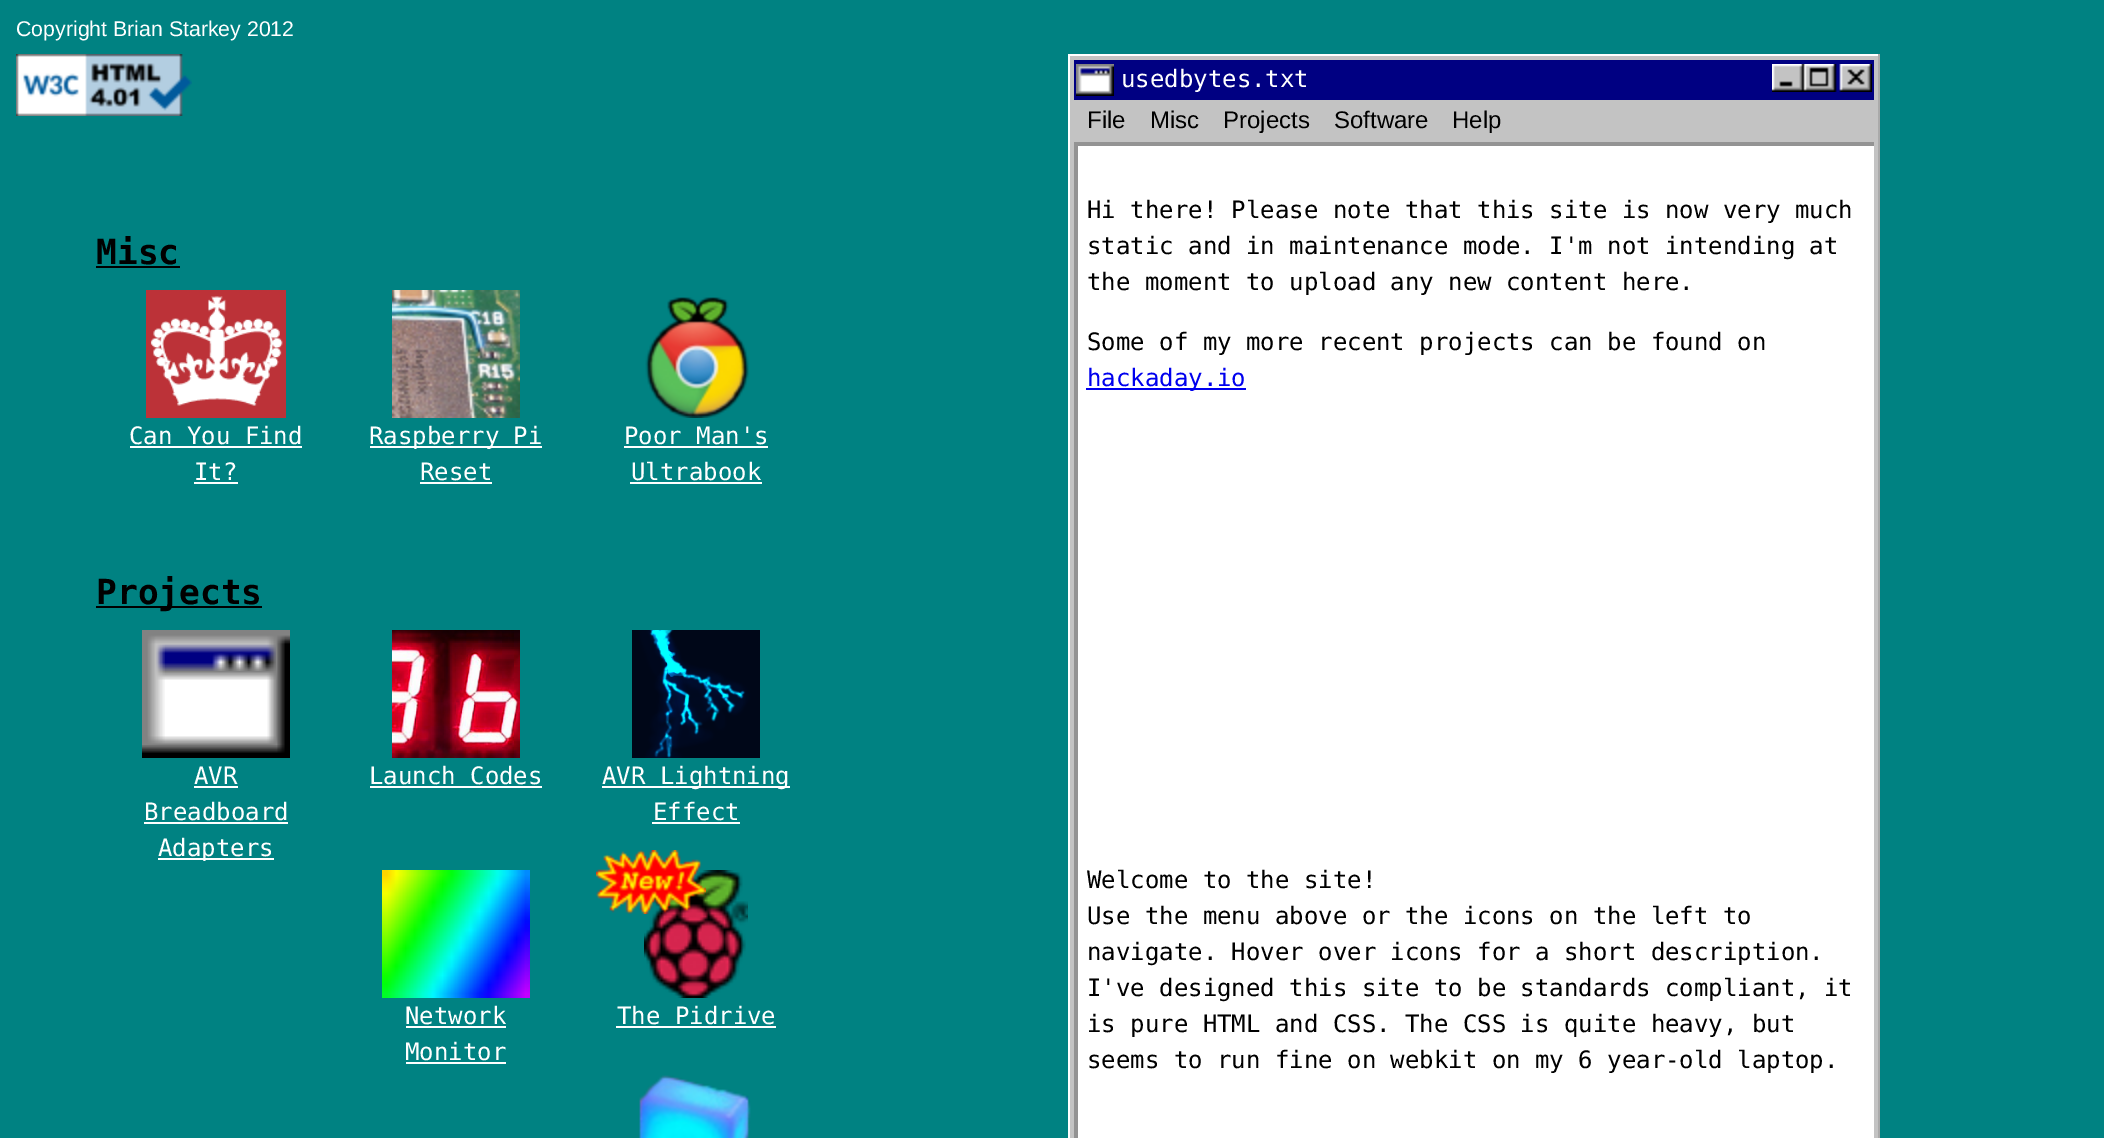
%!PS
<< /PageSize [2104 1138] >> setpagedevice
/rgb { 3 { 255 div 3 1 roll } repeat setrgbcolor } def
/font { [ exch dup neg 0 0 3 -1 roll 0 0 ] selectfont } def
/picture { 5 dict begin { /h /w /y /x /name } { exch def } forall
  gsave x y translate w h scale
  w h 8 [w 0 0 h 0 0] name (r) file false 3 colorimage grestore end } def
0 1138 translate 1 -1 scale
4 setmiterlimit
0 130 130 rgb
0 0 2104 1138 rectfill
(img/1.rgb) 16 54 176 62 picture
[
  [1070 56 808 1082 195 195 195]
  [1068 54 812 2 255 255 255]
  [1878 54 2 1084 170 170 170]
  [1068 54 2 1084 255 255 255]
  [1074 60 800 40 0 0 130]
] { aload pop rgb rectfill } forall
(img/2.rgb) 1076 64 38 32 picture
(img/3.rgb) 1772 64 100 28 picture
255 255 255 rgb
1078 146 796 992 rectfill
147 147 147 rgb
1074 142 800 4 rectfill
1074 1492 moveto 1074 142 lineto 1078 146 lineto 1078 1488 lineto closepath fill
0 0 238 rgb
1086 388 160 2 rectfill
0 0 0 rgb
96 266 84 2 rectfill
(img/4.rgb) 146 290 140 128 picture
255 255 255 rgb
130 446 172 2 rectfill
194 482 44 2 rectfill
(img/5.rgb) 392 290 128 128 picture
370 446 172 2 rectfill
420 482 72 2 rectfill
(img/6.rgb) 645 297 104 121 picture
[
  [624 446 144 2 255 255 255]
  [630 482 132 2 255 255 255]
  [96 606 166 2 0 0 0]
] { aload pop rgb rectfill } forall
(img/7.rgb) 142 630 148 128 picture
[
  [194 786 44 2 255 255 255]
  [144 822 144 2 255 255 255]
  [158 858 116 2 255 255 255]
] { aload pop rgb rectfill } forall
(img/8.rgb) 392 630 128 128 picture
370 786 172 2 rectfill
(img/9.rgb) 632 630 128 128 picture
602 786 188 2 rectfill
652 822 88 2 rectfill
(img/10.rgb) 382 870 148 128 picture
406 1026 100 2 rectfill
406 1062 100 2 rectfill
(img/12.rgb) 644 870 104 128 picture
(img/11.rgb) 596 850 110 64 picture
616 1026 160 2 rectfill
(img/13.rgb) 639 1075 112 63 picture
/LiberationSans-Regular 21.3 font
16 36 moveto (Copyright Brian Starkey 2012) show
/DejaVuSansMono-Regular 24 font
1121 87 moveto (usedbytes.txt) show
/LiberationSans-Regular 24 font
0 0 0 rgb
[
  [(File) 1087 128]
  [(Misc) 1150 128]
  [(Projects) 1223 128]
  [(Software) 1334 128]
  [(Help) 1452 128]
] { aload pop moveto show } forall
/DejaVuSansMono-Regular 24 font
[
  [(Hi there! Please note that this site is now very much) 1087 218]
  [(static and in maintenance mode. I'm not intending at) 1087 254]
  [(the moment to upload any new content here.) 1087 290]
  [(Some of my more recent projects can be found on) 1087 350]
] { aload pop moveto show } forall
0 0 238 rgb
1087 386 moveto (hackaday.io) show
0 0 0 rgb
[
  [(Welcome to the site!) 1087 888]
  [(Use the menu above or the icons on the left to) 1087 924]
  [(navigate. Hover over icons for a short description.) 1087 960]
  [(I've designed this site to be standards compliant, it) 1087 996]
  [(is pure HTML and CSS. The CSS is quite heavy, but) 1087 1032]
  [(seems to run fine on webkit on my 6 year-old laptop.) 1087 1068]
] { aload pop moveto show } forall
/DejaVuSansMono-Bold 34.5 font
96 264 moveto (Misc) show
/DejaVuSansMono-Regular 24 font
255 255 255 rgb
[
  [(Can You Find) 129 444]
  [(It?) 194 480]
  [(Raspberry Pi) 369 444]
  [(Reset) 420 480]
  [(Poor Man's) 624 444]
  [(Ultrabook) 631 480]
] { aload pop moveto show } forall
/DejaVuSansMono-Bold 34.5 font
0 0 0 rgb
96 604 moveto (Projects) show
/DejaVuSansMono-Regular 24 font
255 255 255 rgb
[
  [(AVR) 194 784]
  [(Breadboard) 144 820]
  [(Adapters) 158 856]
  [(Launch Codes) 369 784]
  [(AVR Lightning) 602 784]
  [(Effect) 653 820]
  [(Network) 405 1024]
  [(Monitor) 405 1060]
  [(The Pidrive) 617 1024]
] { aload pop moveto show } forall
showpage
